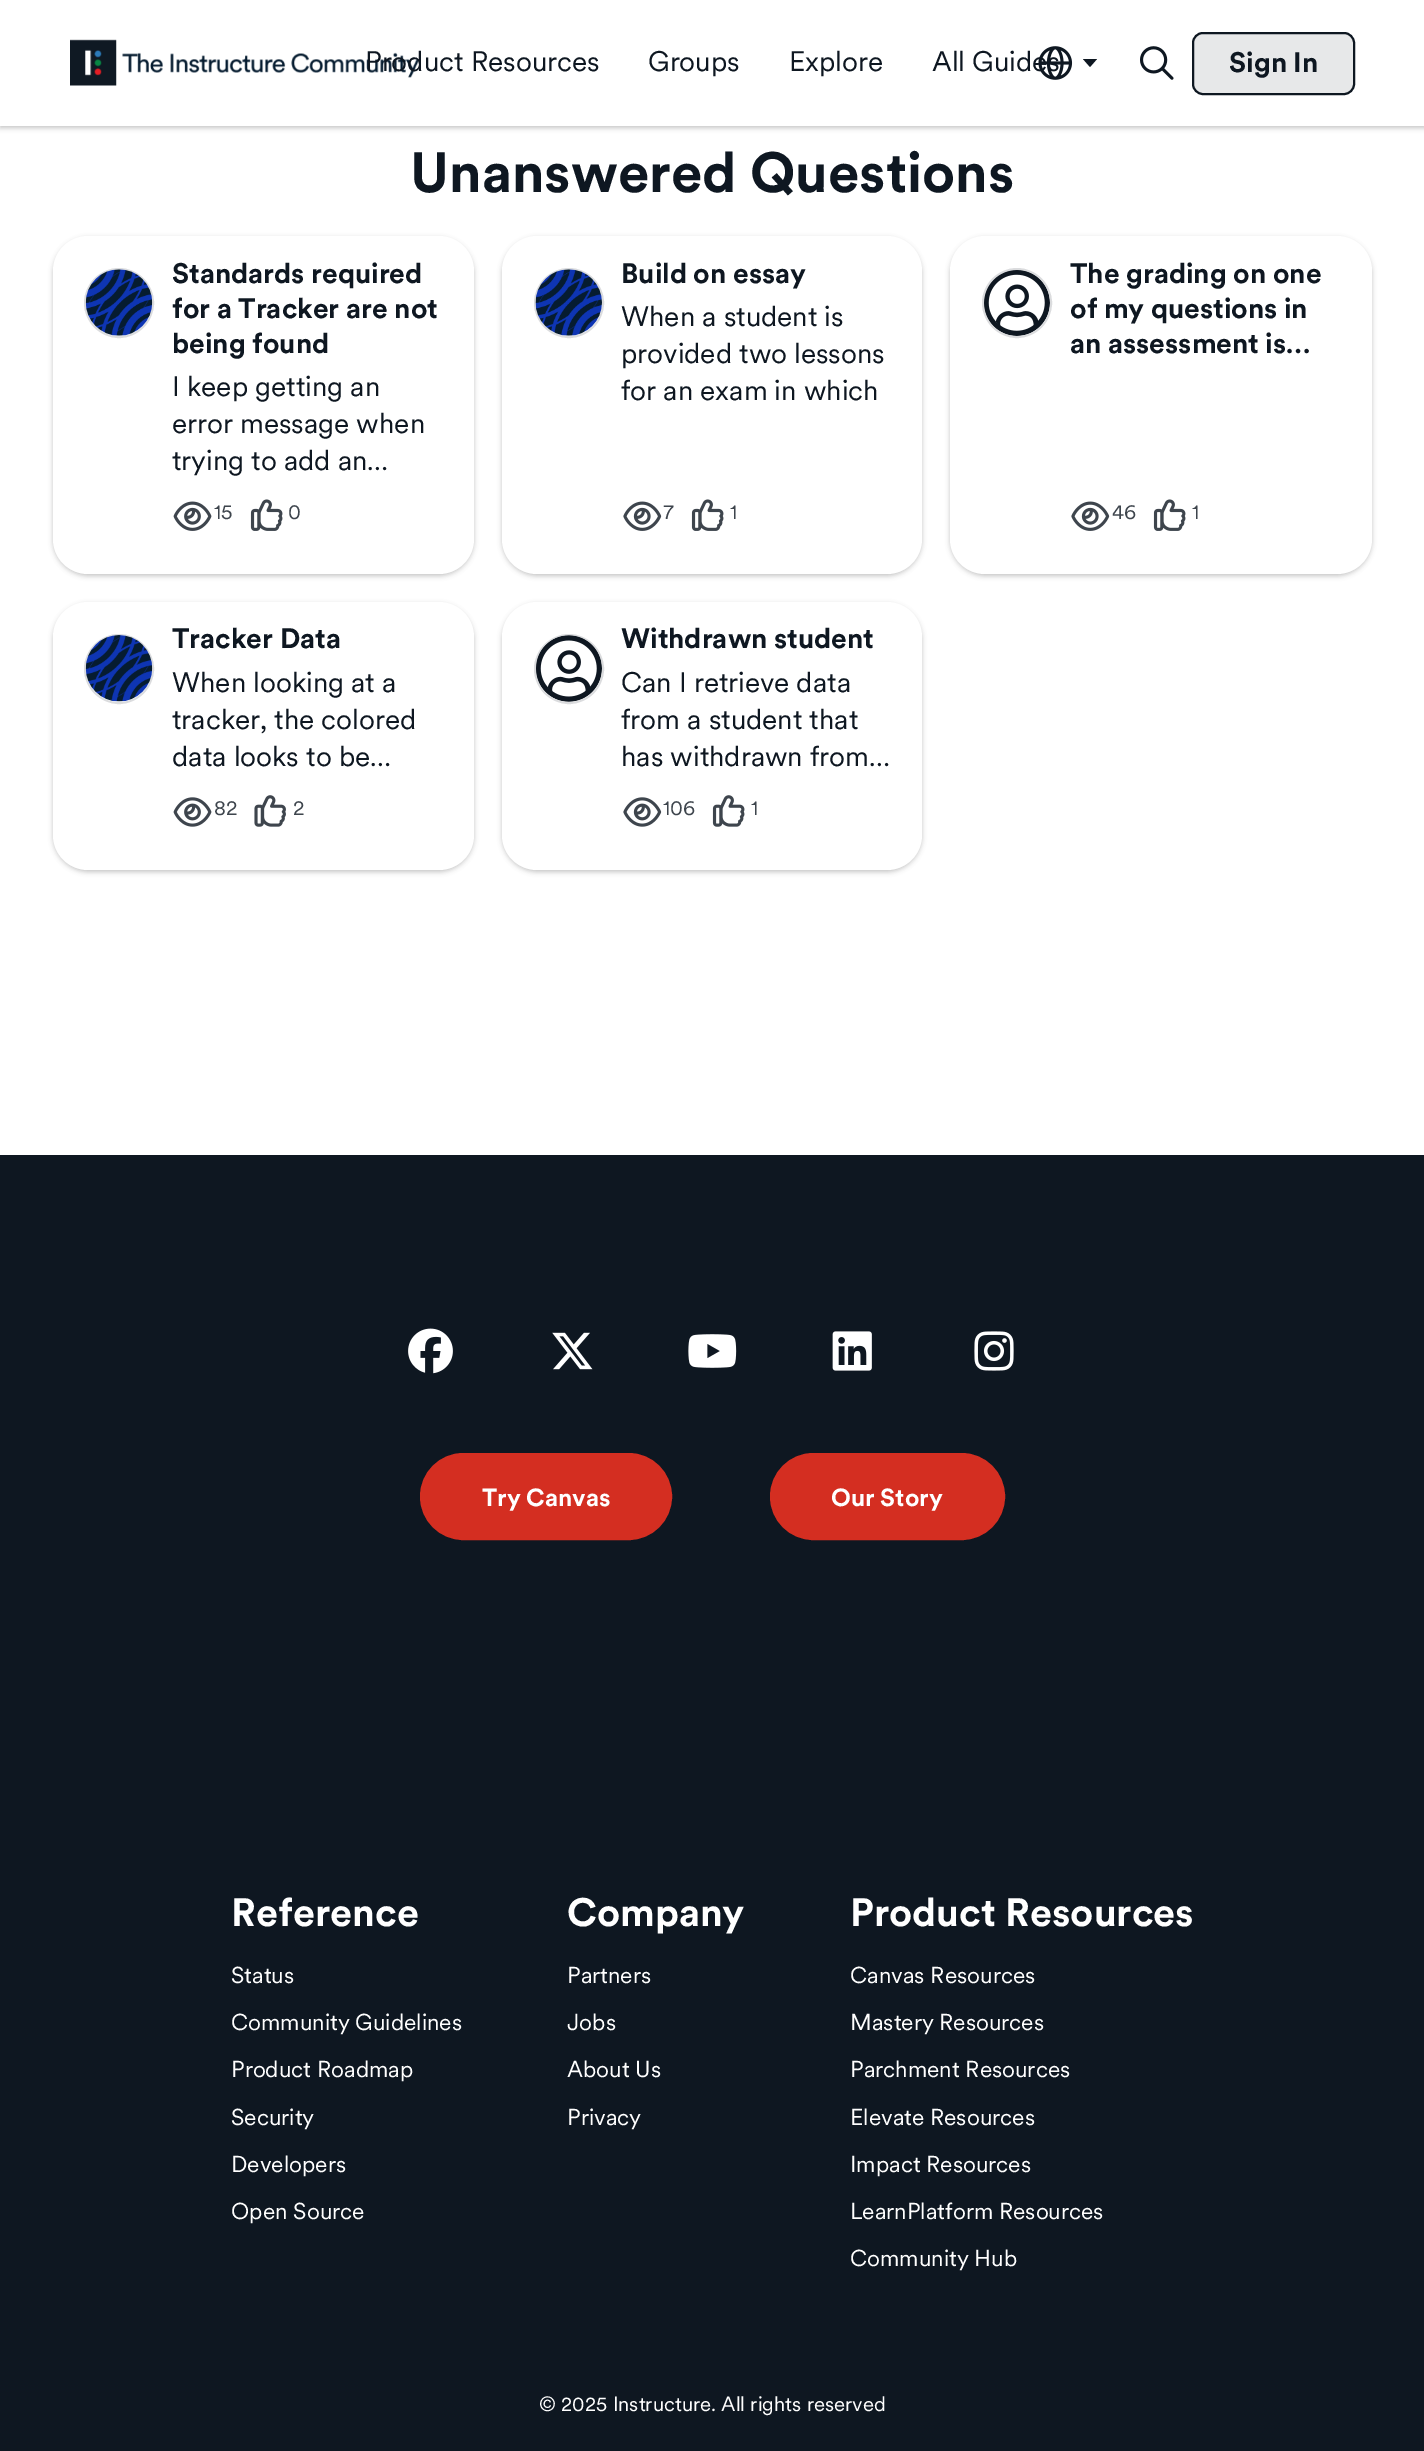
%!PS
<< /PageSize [1424 2451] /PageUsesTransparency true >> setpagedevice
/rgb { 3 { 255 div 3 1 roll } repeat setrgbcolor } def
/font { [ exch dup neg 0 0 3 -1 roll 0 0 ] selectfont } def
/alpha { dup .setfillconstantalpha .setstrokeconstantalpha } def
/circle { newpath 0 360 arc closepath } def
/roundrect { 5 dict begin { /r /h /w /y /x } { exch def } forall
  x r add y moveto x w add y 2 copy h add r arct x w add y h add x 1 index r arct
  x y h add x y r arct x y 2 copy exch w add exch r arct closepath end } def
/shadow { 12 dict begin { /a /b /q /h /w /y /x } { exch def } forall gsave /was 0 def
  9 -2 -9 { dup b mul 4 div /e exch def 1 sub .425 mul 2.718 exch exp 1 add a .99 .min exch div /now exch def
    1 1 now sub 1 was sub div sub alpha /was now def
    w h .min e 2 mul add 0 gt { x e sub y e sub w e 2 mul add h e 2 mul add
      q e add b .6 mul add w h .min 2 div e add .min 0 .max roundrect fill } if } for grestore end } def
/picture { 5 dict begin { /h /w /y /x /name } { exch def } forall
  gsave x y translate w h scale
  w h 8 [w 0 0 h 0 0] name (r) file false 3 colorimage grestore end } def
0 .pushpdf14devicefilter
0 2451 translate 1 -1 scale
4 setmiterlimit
255 255 255 rgb
0 0 1424 2451 rectfill
0 0 0 rgb
0 2 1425 126 0 2.5 0.22 shadow
255 255 255 rgb
0 0 1424 126 rectfill
(img/1.rgb) 70 39 350 47 picture
14 23 33 rgb
1083 59 moveto 1097 59 lineto 1090 67 lineto closepath fill
(img/3.rgb) 1140 46 34 34 picture
231 232 233 rgb
1193 33 161 61 10 roundrect gsave fill grestore
14 23 33 rgb
2 setlinewidth
stroke
0 0 0 rgb
53 238 421 338 35 2.5 0.22 shadow
255 255 255 rgb
53 236 421 338 35 roundrect fill
219 220 222 rgb
119 303 34 circle stroke
(img/4.rgb) 85 269 68 67 picture
(img/5.rgb) 173 501 39 30 picture
(img/6.rgb) 250 499 33 32 picture
0 0 0 rgb
502 238 420 338 35 2.5 0.22 shadow
255 255 255 rgb
502 236 420 338 35 roundrect fill
219 220 222 rgb
569 303 34 circle stroke
(img/7.rgb) 535 269 67 67 picture
(img/8.rgb) 623 501 39 30 picture
(img/6.rgb) 691 499 33 32 picture
0 0 0 rgb
950 238 422 338 35 2.5 0.22 shadow
255 255 255 rgb
950 236 422 338 35 roundrect fill
219 220 222 rgb
1017 303 34 circle stroke
(img/9.rgb) 984 270 66 66 picture
(img/8.rgb) 1071 501 39 30 picture
(img/6.rgb) 1153 499 33 32 picture
0 0 0 rgb
53 604 421 268 35 2.5 0.22 shadow
255 255 255 rgb
53 602 421 268 35 roundrect fill
219 220 222 rgb
119 669 34 circle stroke
(img/10.rgb) 85 635 68 67 picture
(img/11.rgb) 173 797 39 30 picture
(img/12.rgb) 254 795 32 32 picture
0 0 0 rgb
502 604 420 268 35 2.5 0.22 shadow
255 255 255 rgb
502 602 420 268 35 roundrect fill
219 220 222 rgb
569 669 34 circle stroke
(img/13.rgb) 536 635 66 67 picture
(img/14.rgb) 623 797 39 30 picture
(img/15.rgb) 712 795 33 32 picture
14 23 33 rgb
0 1155 1424 1296 rectfill
(img/16.rgb) 408 1328 45 46 picture
(img/17.rgb) 552 1332 41 38 picture
(img/18.rgb) 688 1334 49 34 picture
(img/19.rgb) 832 1331 40 40 picture
(img/20.rgb) 974 1331 40 40 picture
212 46 33 rgb
424.5 1457.5 243 78 39 roundrect gsave fill grestore
9 setlinewidth
stroke
774.5 1457.5 226 78 39 roundrect gsave fill grestore
stroke
/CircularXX-Regular 28 font
14 23 33 rgb
[
  [(Product Resources) 365 71]
  [(Groups) 648 71]
  [(Explore) 789 71]
  [(All Guides) 932 71]
] { aload pop moveto show } forall
(img/2.rgb) 1038 46 35 34 picture
/CircularXX-Bold 28 font
1229 72 moveto (Sign In) show
/CircularXX-Bold 56 font
410 192 moveto (Unanswered Questions) show
/CircularXX-Bold 28 font
[
  [(Standards required) 172 283]
  [(for a Tracker are not) 172 318]
  [(being found) 172 353]
] { aload pop moveto show } forall
/CircularXX-Regular 28 font
[
  [(I keep getting an) 172 396]
  [(error message when) 172 433]
  [(trying to add an…) 172 470]
] { aload pop moveto show } forall
/CircularXX-Regular 21 font
62 69 77 rgb
214 519 moveto (15) show
288 519 moveto (0) show
/CircularXX-Bold 28 font
14 23 33 rgb
621 283 moveto (Build on essay) show
/CircularXX-Regular 28 font
[
  [(When a student is) 621 326]
  [(provided two lessons) 621 363]
  [(for an exam in which) 621 400]
] { aload pop moveto show } forall
/CircularXX-Regular 21 font
62 69 77 rgb
663 519 moveto (7) show
730 519 moveto (1) show
/CircularXX-Bold 28 font
14 23 33 rgb
[
  [(The grading on one) 1070 283]
  [(of my questions in) 1070 318]
  [(an assessment is…) 1070 353]
] { aload pop moveto show } forall
/CircularXX-Regular 21 font
62 69 77 rgb
1112 519 moveto (46) show
1192 519 moveto (1) show
/CircularXX-Bold 28 font
14 23 33 rgb
172 648 moveto (Tracker Data) show
/CircularXX-Regular 28 font
[
  [(When looking at a) 172 692]
  [(tracker, the colored) 172 729]
  [(data looks to be…) 172 766]
] { aload pop moveto show } forall
/CircularXX-Regular 21 font
62 69 77 rgb
214 815 moveto (82) show
293 815 moveto (2) show
/CircularXX-Bold 28 font
14 23 33 rgb
621 648 moveto (Withdrawn student) show
/CircularXX-Regular 28 font
[
  [(Can I retrieve data) 621 692]
  [(from a student that) 621 729]
  [(has withdrawn from…) 621 766]
] { aload pop moveto show } forall
/CircularXX-Regular 21 font
62 69 77 rgb
663 815 moveto (106) show
751 815 moveto (1) show
/CircularXX-Bold 24.5 font
255 255 255 rgb
482 1506 moveto (Try Canvas) show
831 1506 moveto (Our Story) show
/CircularXX-Bold 39.25 font
231 1926 moveto (Reference) show
/CircularXX-Regular 22.75 font
[
  [(Status) 231 1983]
  [(Community Guidelines) 231 2030]
  [(Product Roadmap) 231 2077]
  [(Security) 231 2125]
  [(Developers) 231 2172]
  [(Open Source) 231 2219]
] { aload pop moveto show } forall
/CircularXX-Bold 39.25 font
567 1926 moveto (Company) show
/CircularXX-Regular 22.75 font
[
  [(Partners) 567 1983]
  [(Jobs) 567 2030]
  [(About Us) 567 2077]
  [(Privacy) 567 2125]
] { aload pop moveto show } forall
/CircularXX-Bold 39.25 font
850 1926 moveto (Product Resources) show
/CircularXX-Regular 22.75 font
[
  [(Canvas Resources) 850 1983]
  [(Mastery Resources) 850 2030]
  [(Parchment Resources) 850 2077]
  [(Elevate Resources) 850 2125]
  [(Impact Resources) 850 2172]
  [(LearnPlatform Resources) 850 2219]
  [(Community Hub) 850 2266]
] { aload pop moveto show } forall
/CircularXX-Regular 20.4 font
539 2411 moveto (© 2025 Instructure. All rights reserved) show
.poppdf14devicefilter showpage
